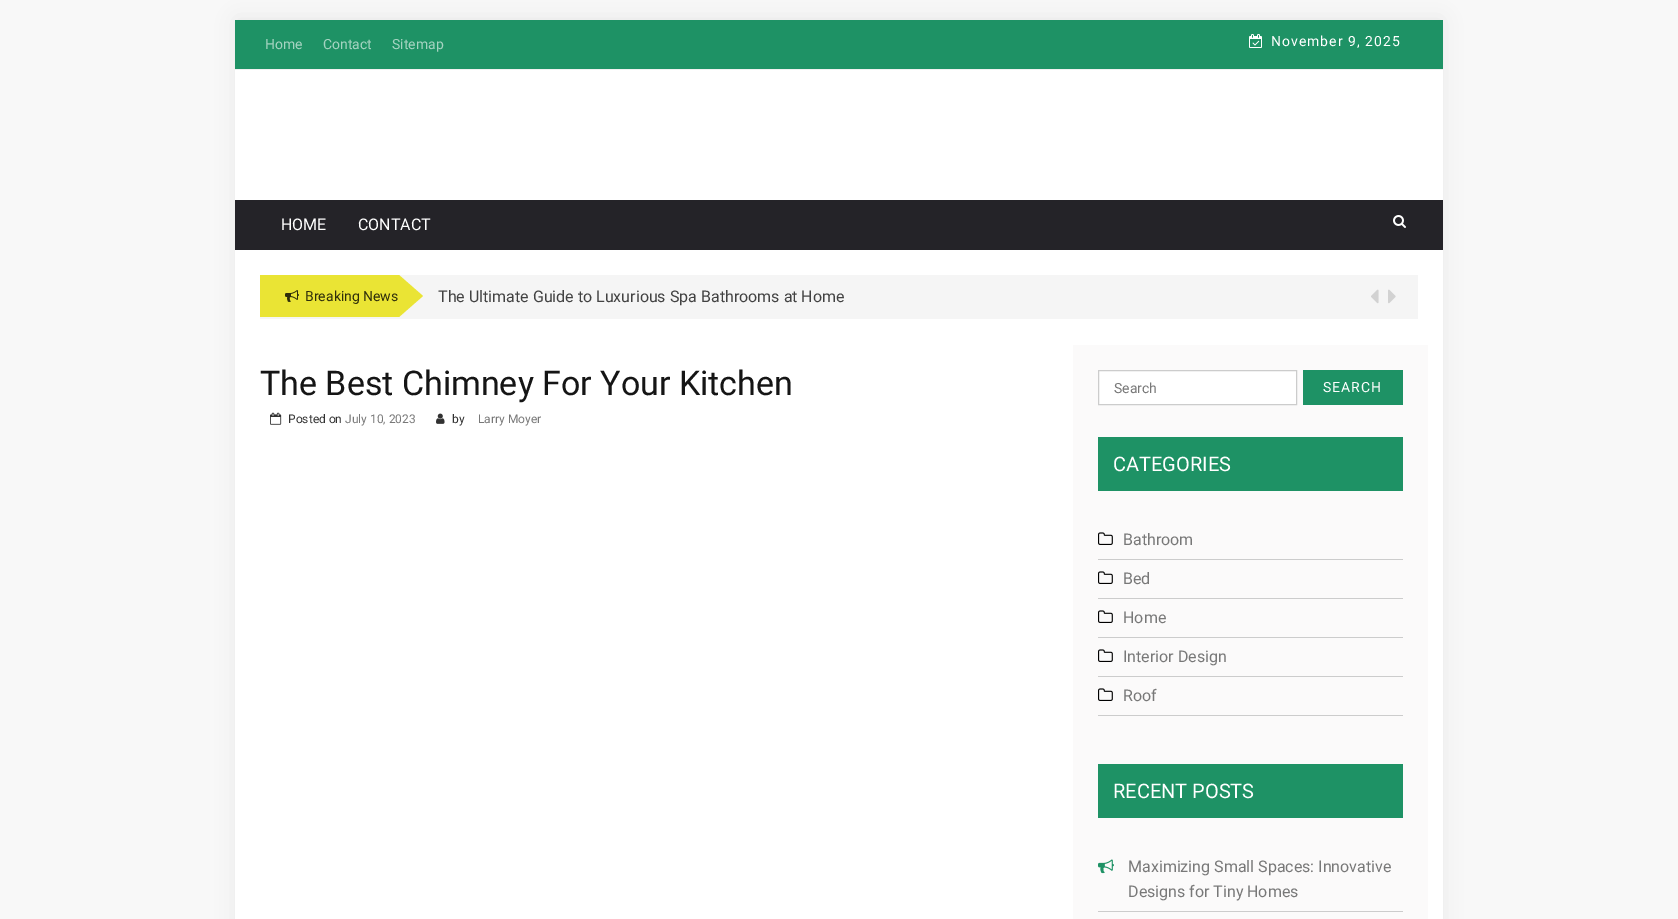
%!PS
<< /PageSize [1678 919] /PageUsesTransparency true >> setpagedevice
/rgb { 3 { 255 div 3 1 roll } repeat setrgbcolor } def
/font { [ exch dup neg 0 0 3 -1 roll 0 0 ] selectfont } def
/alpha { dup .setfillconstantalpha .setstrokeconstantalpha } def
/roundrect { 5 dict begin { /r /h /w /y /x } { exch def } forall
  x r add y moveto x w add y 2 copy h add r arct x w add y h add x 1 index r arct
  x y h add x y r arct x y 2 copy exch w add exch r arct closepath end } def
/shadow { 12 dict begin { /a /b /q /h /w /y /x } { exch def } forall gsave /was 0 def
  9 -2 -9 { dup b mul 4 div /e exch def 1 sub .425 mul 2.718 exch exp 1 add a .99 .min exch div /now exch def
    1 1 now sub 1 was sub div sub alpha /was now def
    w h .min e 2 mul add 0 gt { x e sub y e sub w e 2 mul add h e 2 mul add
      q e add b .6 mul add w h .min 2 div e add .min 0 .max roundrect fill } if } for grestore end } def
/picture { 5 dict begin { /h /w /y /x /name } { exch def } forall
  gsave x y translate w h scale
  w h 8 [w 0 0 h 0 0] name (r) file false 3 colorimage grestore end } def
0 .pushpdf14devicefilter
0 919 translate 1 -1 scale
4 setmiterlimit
248 248 248 rgb
0 0 1678 919 rectfill
0 0 0 rgb
237 20 1204 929 0 10 0.07 shadow
[
  [235 70 1208 849 255 255 255]
  [235 20 1208 49 30 146 101]
  [235 69 1208 1 241 241 241]
] { aload pop rgb rectfill } forall
(img/1.rgb) 1249 34 13 14 picture
36 35 40 rgb
235 200 1208 50 rectfill
(img/2.rgb) 1393 215 13 13 picture
245 245 245 rgb
260 275 1158 44 rectfill
234 228 52 rgb
260 275 moveto 260 317 lineto 399 317 lineto 423 296 lineto 399 275 lineto closepath fill
(img/3.rgb) 285 290 14 12 picture
(img/4.rgb) 1371 289 8 15 picture
(img/5.rgb) 1388 289 8 15 picture
(img/6.rgb) 270 412 12 13 picture
(img/7.rgb) 436 413 9 11 picture
251 250 250 rgb
1073 345 355 574 rectfill
255 255 255 rgb
1098.5 370.5 moveto 1296.5 370.5 lineto 1296.5 404.5 lineto 1098.5 404.5 lineto closepath gsave fill grestore
204 204 204 rgb
stroke
[
  [1303 370 100 35 30 146 101]
  [1098 437 305 54 30 146 101]
  [1098 559 305 1 204 204 204]
] { aload pop rgb rectfill } forall
(img/8.rgb) 1098 532 15 13 picture
1098 598 305 1 rectfill
(img/8.rgb) 1098 571 15 13 picture
1098 637 305 1 rectfill
(img/8.rgb) 1098 610 15 13 picture
1098 676 305 1 rectfill
(img/8.rgb) 1098 649 15 13 picture
1098 715 305 1 rectfill
(img/8.rgb) 1098 688 15 13 picture
30 146 101 rgb
1098 764 305 54 rectfill
204 204 204 rgb
1098 911 305 1 rectfill
(img/9.rgb) 1098 859 16 15 picture
/Roboto-Regular 14 font
165 211 193 rgb
[
  [(Home) 265 49]
  [(Contact) 323 49]
  [(Sitemap) 392 49]
] { aload pop moveto show } forall
255 255 255 rgb
1271 46 moveto 1 0 (November 9, 2025) ashow
/Roboto-Regular 16 font
281 230 moveto (HOME) show
358 230 moveto (CONTACT) show
/Roboto-Regular 14 font
47 46 10 rgb
305 301 moveto (Breaking News) show
/Roboto-Regular 16 font
66 66 66 rgb
438 302 moveto (The Ultimate Guide to Luxurious Spa Bathrooms at Home) show
/Roboto-Regular 34 font
21 21 21 rgb
260 395 moveto (The Best Chimney For Your Kitchen) show
/Roboto-Regular 12 font
49 49 49 rgb
288 423 moveto (Posted on) show
120 120 120 rgb
345 423 moveto (July 10, 2023) show
49 49 49 rgb
452 423 moveto (by) show
120 120 120 rgb
478 423 moveto (Larry Moyer) show
/Roboto-Regular 14 font
1114 393 moveto (Search) show
255 255 255 rgb
1323 392 moveto 1 0 (SEARCH) ashow
/Roboto-Regular 20 font
1113 471 moveto (CATEGORIES) show
/Roboto-Regular 16 font
120 120 120 rgb
[
  [(Bathroom) 1123 545]
  [(Bed) 1123 584]
  [(Home) 1123 623]
  [(Interior Design) 1123 662]
  [(Roof) 1123 701]
] { aload pop moveto show } forall
/Roboto-Regular 20 font
255 255 255 rgb
1113 798 moveto (RECENT POSTS) show
/Roboto-Regular 16 font
120 120 120 rgb
1128 872 moveto (Maximizing Small Spaces: Innovative) show
1128 897 moveto (Designs for Tiny Homes) show
.poppdf14devicefilter showpage
